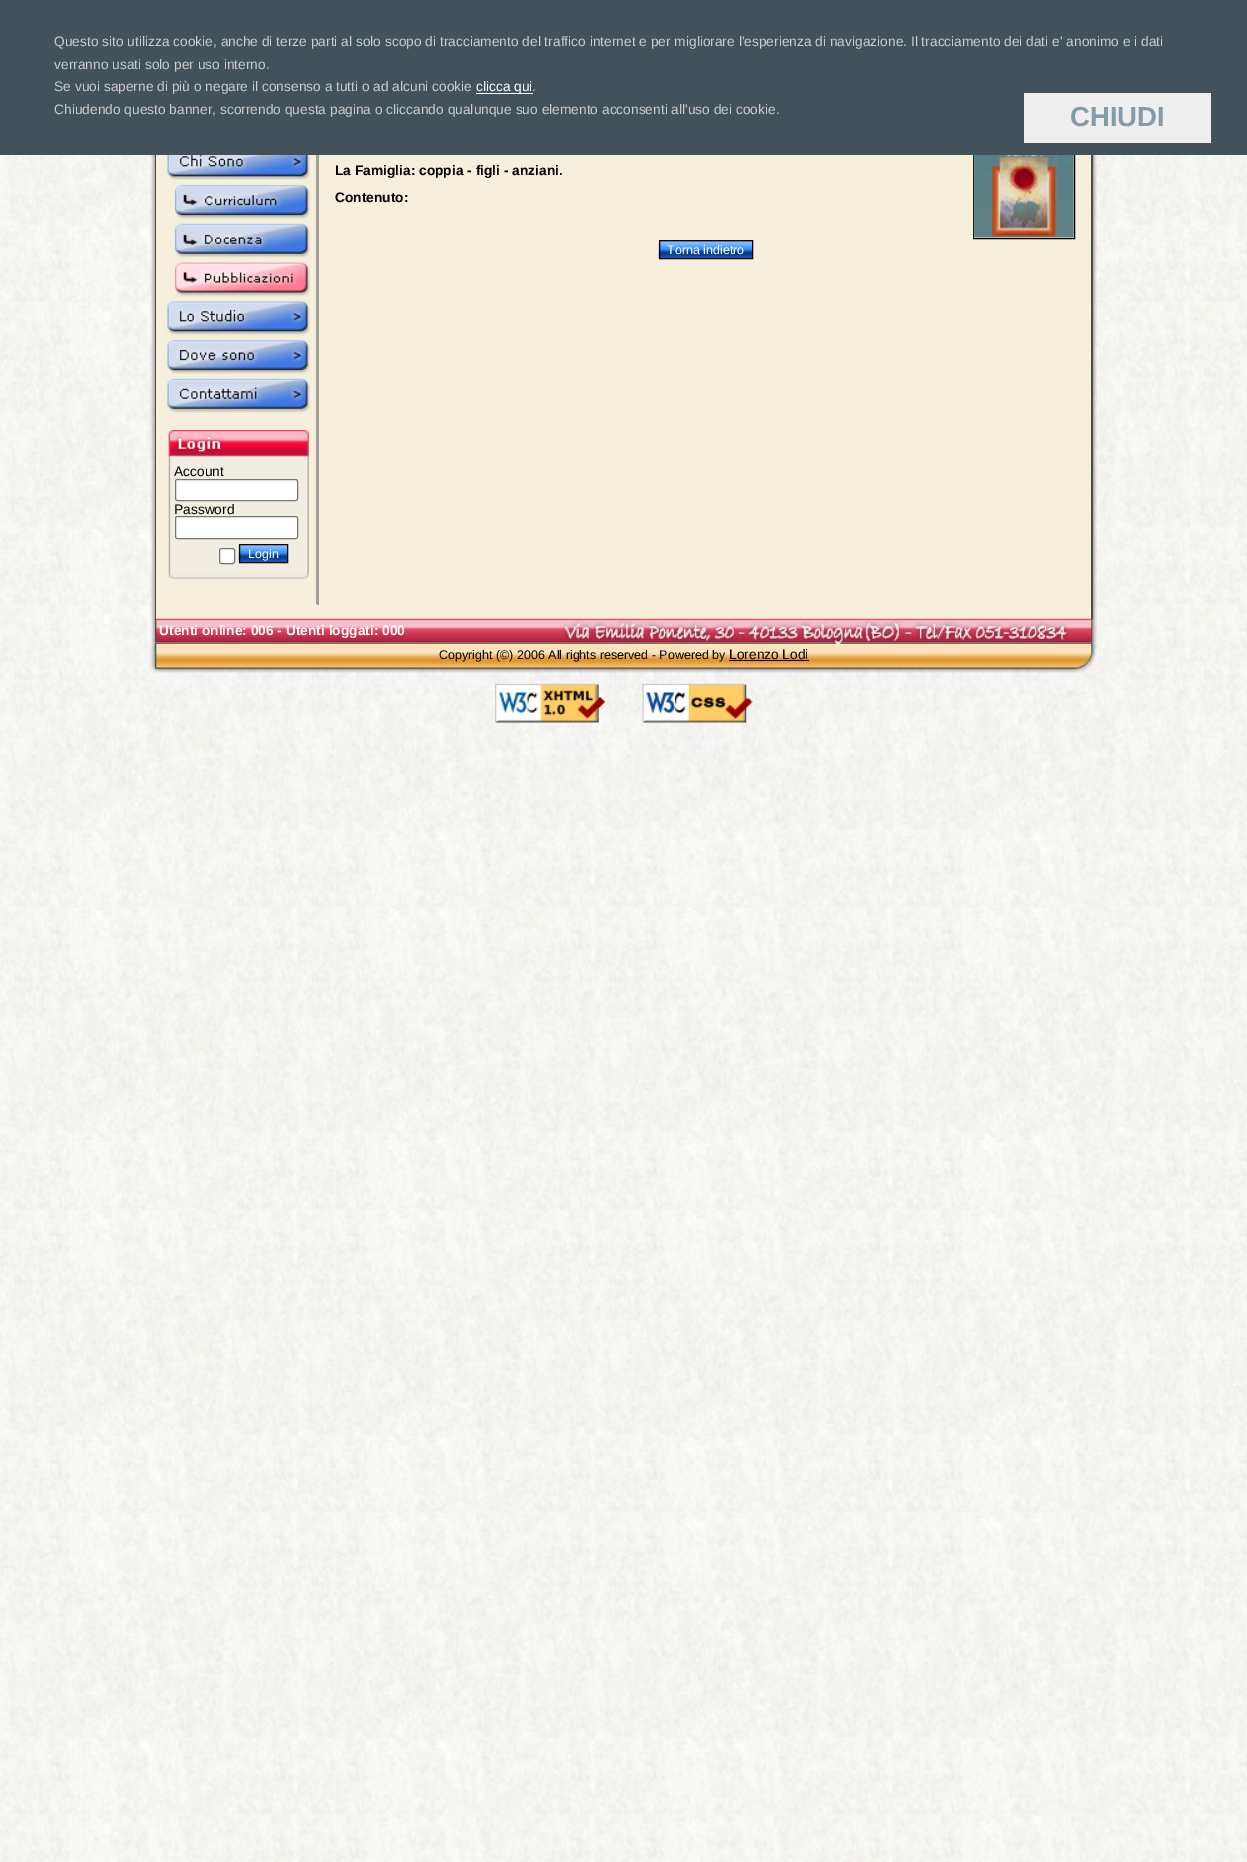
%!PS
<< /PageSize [1247 1862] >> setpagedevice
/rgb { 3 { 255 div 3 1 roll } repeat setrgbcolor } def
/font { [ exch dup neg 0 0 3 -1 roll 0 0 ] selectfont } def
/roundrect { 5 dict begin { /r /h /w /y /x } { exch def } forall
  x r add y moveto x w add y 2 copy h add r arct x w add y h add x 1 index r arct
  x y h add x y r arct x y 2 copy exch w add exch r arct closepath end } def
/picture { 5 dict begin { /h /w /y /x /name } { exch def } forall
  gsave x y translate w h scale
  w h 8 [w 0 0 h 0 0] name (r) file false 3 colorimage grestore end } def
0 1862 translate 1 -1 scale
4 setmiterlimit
255 255 255 rgb
0 0 1247 1862 rectfill
(img/1.rgb) 0 155 1247 1707 picture
(img/2.rgb) 150 155 947 488 picture
74 74 74 rgb
155 155 938 464 rectfill
245 239 220 rgb
156 155 935 464 rectfill
0 0 0 rgb
973.5 136.5 101 102 rectstroke
[
  [0 0 1247 155 67 82 90]
  [476 93 57 1 255 255 255]
  [1024 93 187 50 239 239 239]
  [316 155 3 449 158 157 152]
] { aload pop rgb rectfill } forall
(img/3.rgb) 973 155 101 83 picture
(img/4.rgb) 658 241 94 18 picture
0 0 0 rgb
659.5 240.5 93 18 rectstroke
(img/5.rgb) 165 155 146 26 picture
(img/6.rgb) 174 182 138 38 picture
(img/7.rgb) 174 221 138 38 picture
(img/8.rgb) 174 260 139 38 picture
(img/9.rgb) 165 299 146 37 picture
(img/10.rgb) 165 337 146 38 picture
(img/11.rgb) 165 376 147 38 picture
(img/12.rgb) 168 430 141 149 picture
(img/13.rgb) 168 430 141 27 picture
255 255 255 rgb
175.5 479.5 122 21 2 roundrect gsave fill grestore
118 118 118 rgb
stroke
255 255 255 rgb
175.5 516.5 122 22 2 roundrect gsave fill grestore
118 118 118 rgb
stroke
255 255 255 rgb
219.5 548.5 15 15 2 roundrect gsave fill grestore
118 118 118 rgb
stroke
(img/14.rgb) 238 545 49 18 picture
0 0 0 rgb
239.5 544.5 48 18 rectstroke
245 239 220 rgb
169 574 140 5 rectfill
(img/15.rgb) 168 573 141 6 picture
(img/16.rgb) 317 603 2 2 picture
(img/17.rgb) 155 618 938 25 picture
(img/18.rgb) 150 642 947 31 picture
0 0 0 rgb
729 660 80 1 rectfill
(img/19.rgb) 495 683 110 40 picture
(img/20.rgb) 642 683 111 40 picture
/LiberationSans-Regular 13.75 font
204 204 204 rgb
[
  [(Questo sito utilizza cookie, anche di terze parti al solo scopo di tracciamento del traffico internet e per migliorare l'esperienza di navigazione. Il tracciamento dei dati e' anonimo e i dati) 54 46]
  [(verranno usati solo per uso interno.) 54 69]
  [(Se vuoi saperne di più o negare il consenso a tutti o ad alcuni cookie) 54 91]
] { aload pop moveto show } forall
255 255 255 rgb
476 91 moveto (clicca qui) show
204 204 204 rgb
532 91 moveto (.) show
54 114 moveto (Chiudendo questo banner, scorrendo questa pagina o cliccando qualunque suo elemento acconsenti all'uso dei cookie.) show
/LiberationSans-Bold 27.5 font
134 155 166 rgb
1070 126 moveto (CHIUDI) show
/LiberationSans-Bold 13.75 font
0 0 0 rgb
335 175 moveto (La Famiglia: coppia - figli - anziani.) show
335 202 moveto (Contenuto:) show
/LiberationSans-Regular 12.5 font
255 255 255 rgb
667 254 moveto (Torna indietro) show
/LiberationSans-Regular 13.75 font
0 0 0 rgb
174 476 moveto (Account) show
174 514 moveto (Password) show
/LiberationSans-Regular 12.5 font
255 255 255 rgb
248 558 moveto (Login) show
/LiberationSans-Bold 13.75 font
159 635 moveto (Utenti online: 006 - Utenti loggati: 000) show
/LiberationSans-Regular 12.5 font
0 0 0 rgb
439 659 moveto (Copyright \(©\) 2006 All rights reserved - Powered by) show
/LiberationSans-Regular 13.75 font
729 659 moveto (Lorenzo Lodi) show
showpage
